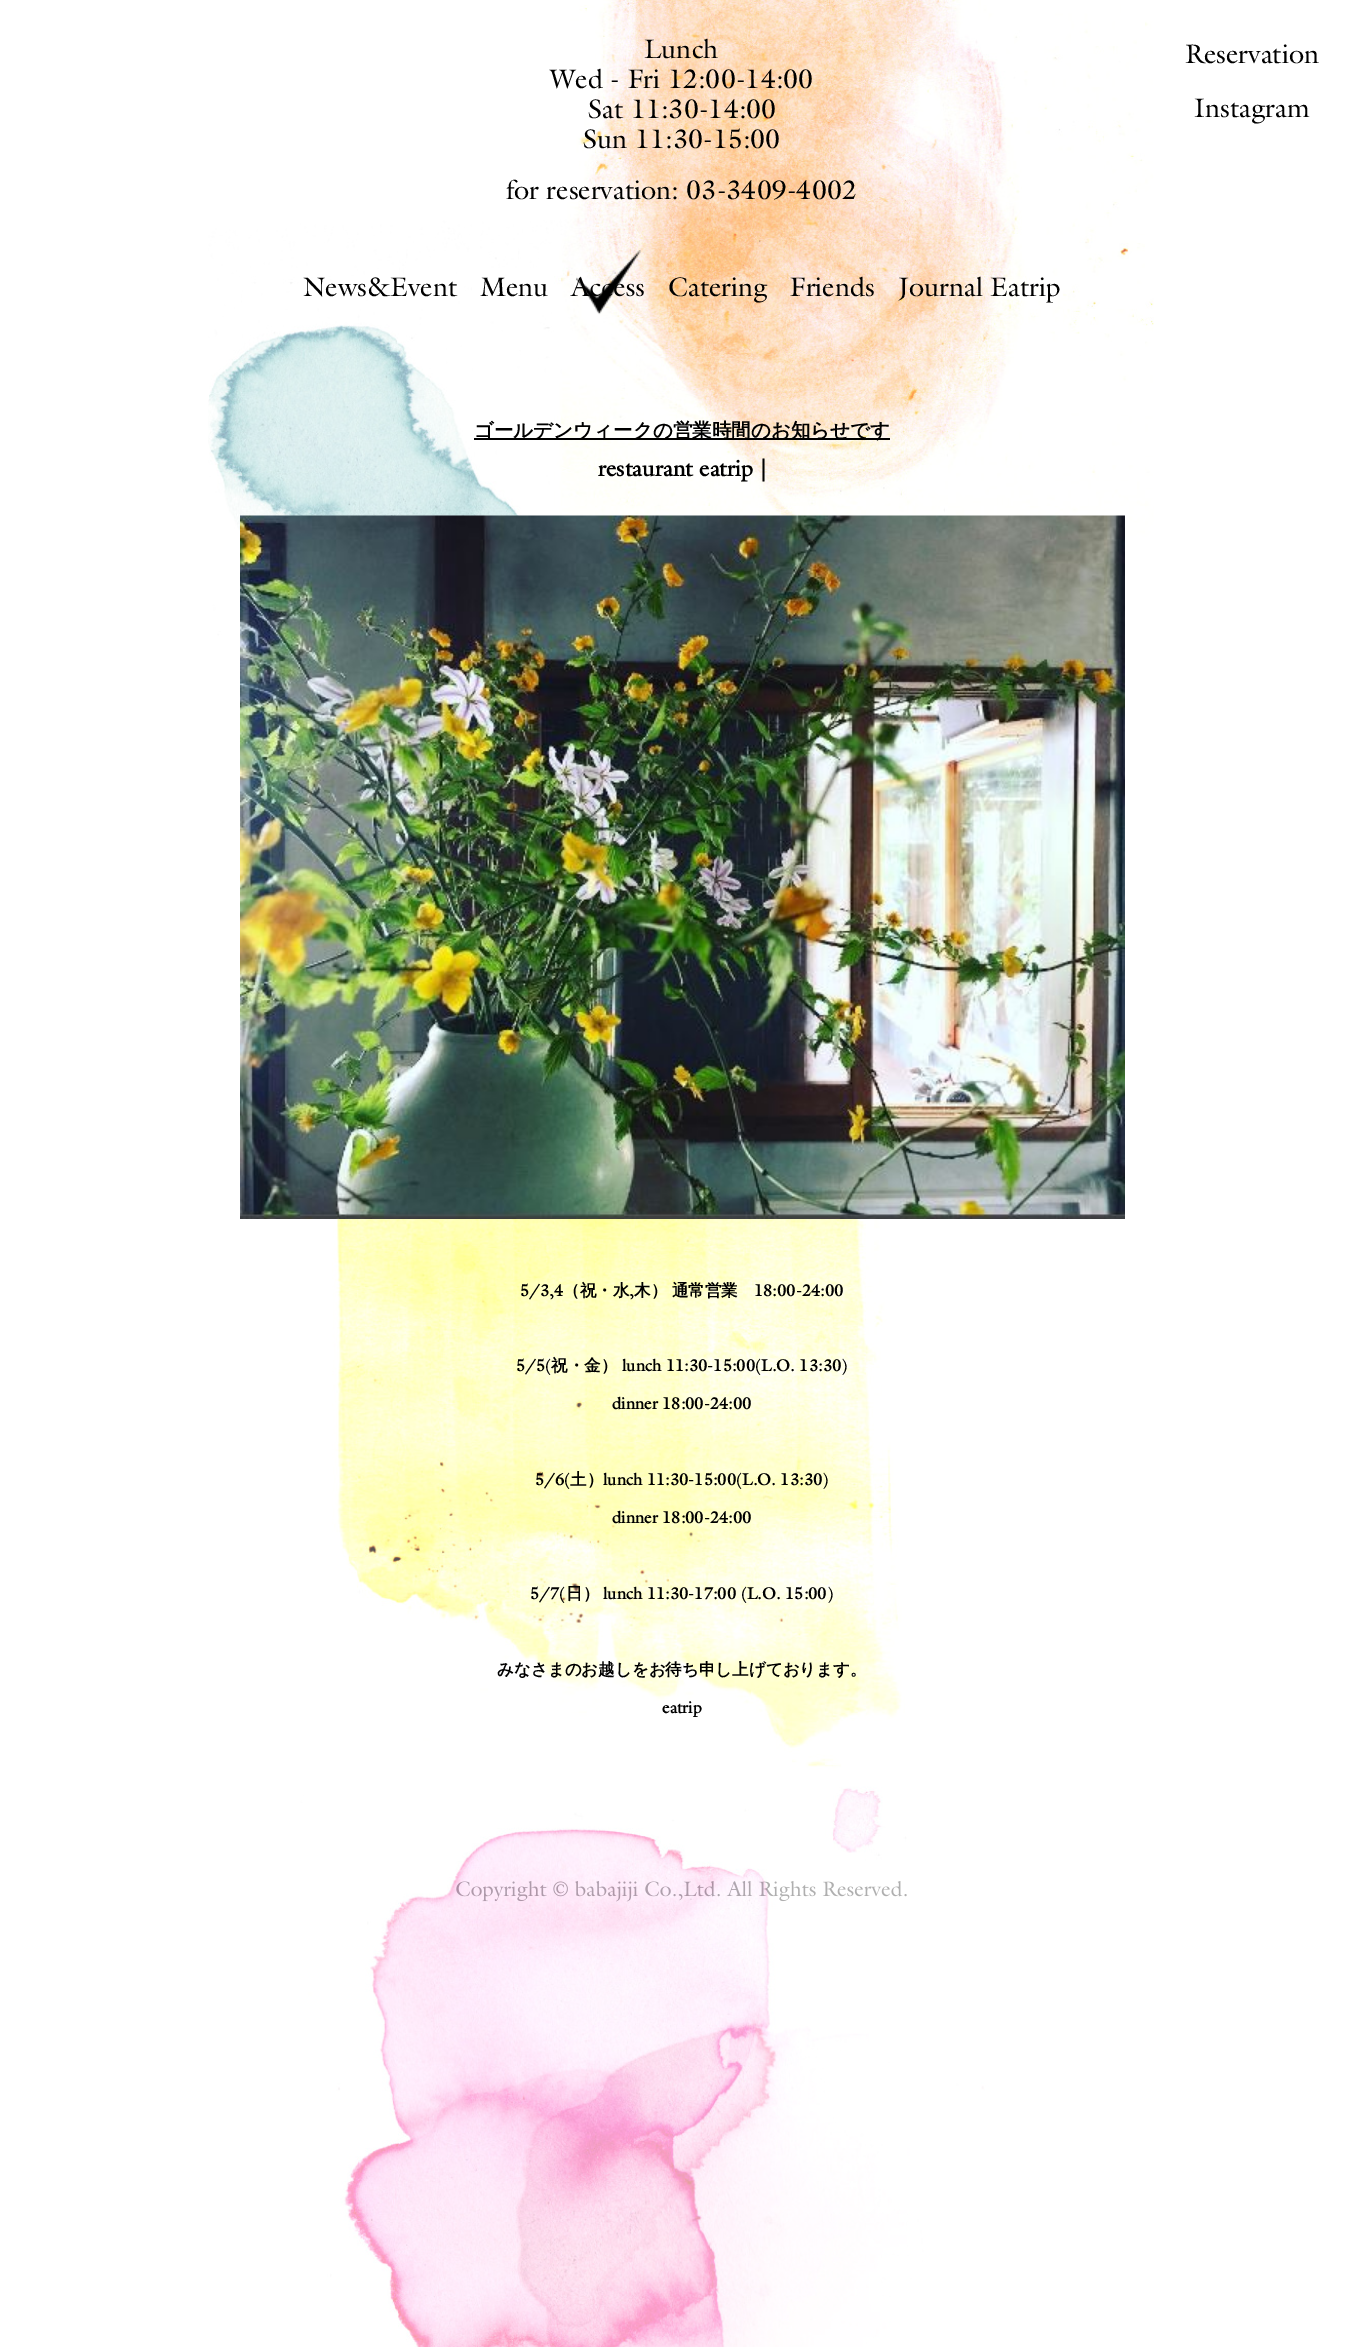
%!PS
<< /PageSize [1363 2347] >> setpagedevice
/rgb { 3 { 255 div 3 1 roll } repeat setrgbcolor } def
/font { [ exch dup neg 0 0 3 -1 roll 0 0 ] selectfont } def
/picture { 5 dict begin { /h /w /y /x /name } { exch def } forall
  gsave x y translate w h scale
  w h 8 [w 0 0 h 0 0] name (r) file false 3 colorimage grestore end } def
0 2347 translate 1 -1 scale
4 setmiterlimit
255 255 255 rgb
0 0 1363 2347 rectfill
/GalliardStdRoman-Regular 27 font
0 0 0 rgb
1185 63 moveto (Reservation) show
1194 117 moveto (Instagram) show
/GalliardStdRoman-Regular 21 font
455 1896 moveto (Copyright © babajiji Co.,Ltd. All Rights Reserved.) show
(img/1.rgb) 208 0 946 2347 picture
/GalliardStdRoman-Regular 27 font
[
  [(Journal Eatrip) 898 296]
  [(Friends) 790 296]
  [(Catering) 668 296]
  [(Access) 571 296]
] { aload pop moveto show } forall
(img/2.rgb) 576 250 65 65 picture
[
  [(Menu) 480 296]
  [(News&Event) 303 296]
  [(for reservation: 03-3409-4002) 506 199]
  [(Sun 11:30-15:00) 583 148]
  [(Sat 11:30-14:00) 588 118]
  [(Wed - Fri 12:00-14:00) 550 88]
  [(Lunch) 644 58]
] { aload pop moveto show } forall
/GalliardStdRoman-Bold 16.5 font
662 1713 moveto (eatrip) show
/WenQuanYiZenHei-Bold 16.5 font
497 1675 moveto (みなさまのお越しをお待ち申し上げております。) show
/GalliardStdRoman-Bold 16.5 font
603 1599 moveto (lunch 11:30-17:00 \(L.O. 15:00\)) show
/WenQuanYiZenHei-Bold 16.5 font
566 1599 moveto (日）) show
/GalliardStdRoman-Bold 16.5 font
[
  [(5/7\() 530 1599]
  [(dinner 18:00-24:00) 612 1523]
  [(lunch 11:30-15:00\(L.O. 13:30\)) 603 1485]
] { aload pop moveto show } forall
/WenQuanYiZenHei-Bold 16.5 font
570 1485 moveto (土）) show
/GalliardStdRoman-Bold 16.5 font
[
  [(5/6\() 535 1485]
  [(dinner 18:00-24:00) 612 1409]
  [(lunch 11:30-15:00\(L.O. 13:30\)) 622 1371]
] { aload pop moveto show } forall
/WenQuanYiZenHei-Bold 16.5 font
551 1371 moveto (祝・金）) show
/GalliardStdRoman-Bold 16.5 font
516 1371 moveto (5/5\() show
754 1296 moveto (18:00-24:00) show
/WenQuanYiZenHei-Bold 16.5 font
634 1296 moveto (木） 通常営業) show
/GalliardStdRoman-Bold 16.5 font
629 1296 moveto (,) show
/WenQuanYiZenHei-Bold 16.5 font
563 1296 moveto (（祝・水) show
/GalliardStdRoman-Bold 16.5 font
520 1296 moveto (5/3,4) show
(img/3.rgb) 240 515 885 704 picture
/GalliardStdRoman-Bold 22.5 font
598 476 moveto (restaurant eatrip |) show
474 438 416 2 rectfill
/WenQuanYiZenHei-Bold 19.5 font
474 437 moveto (ゴールデンウィークの営業時間のお知らせです) show
showpage
